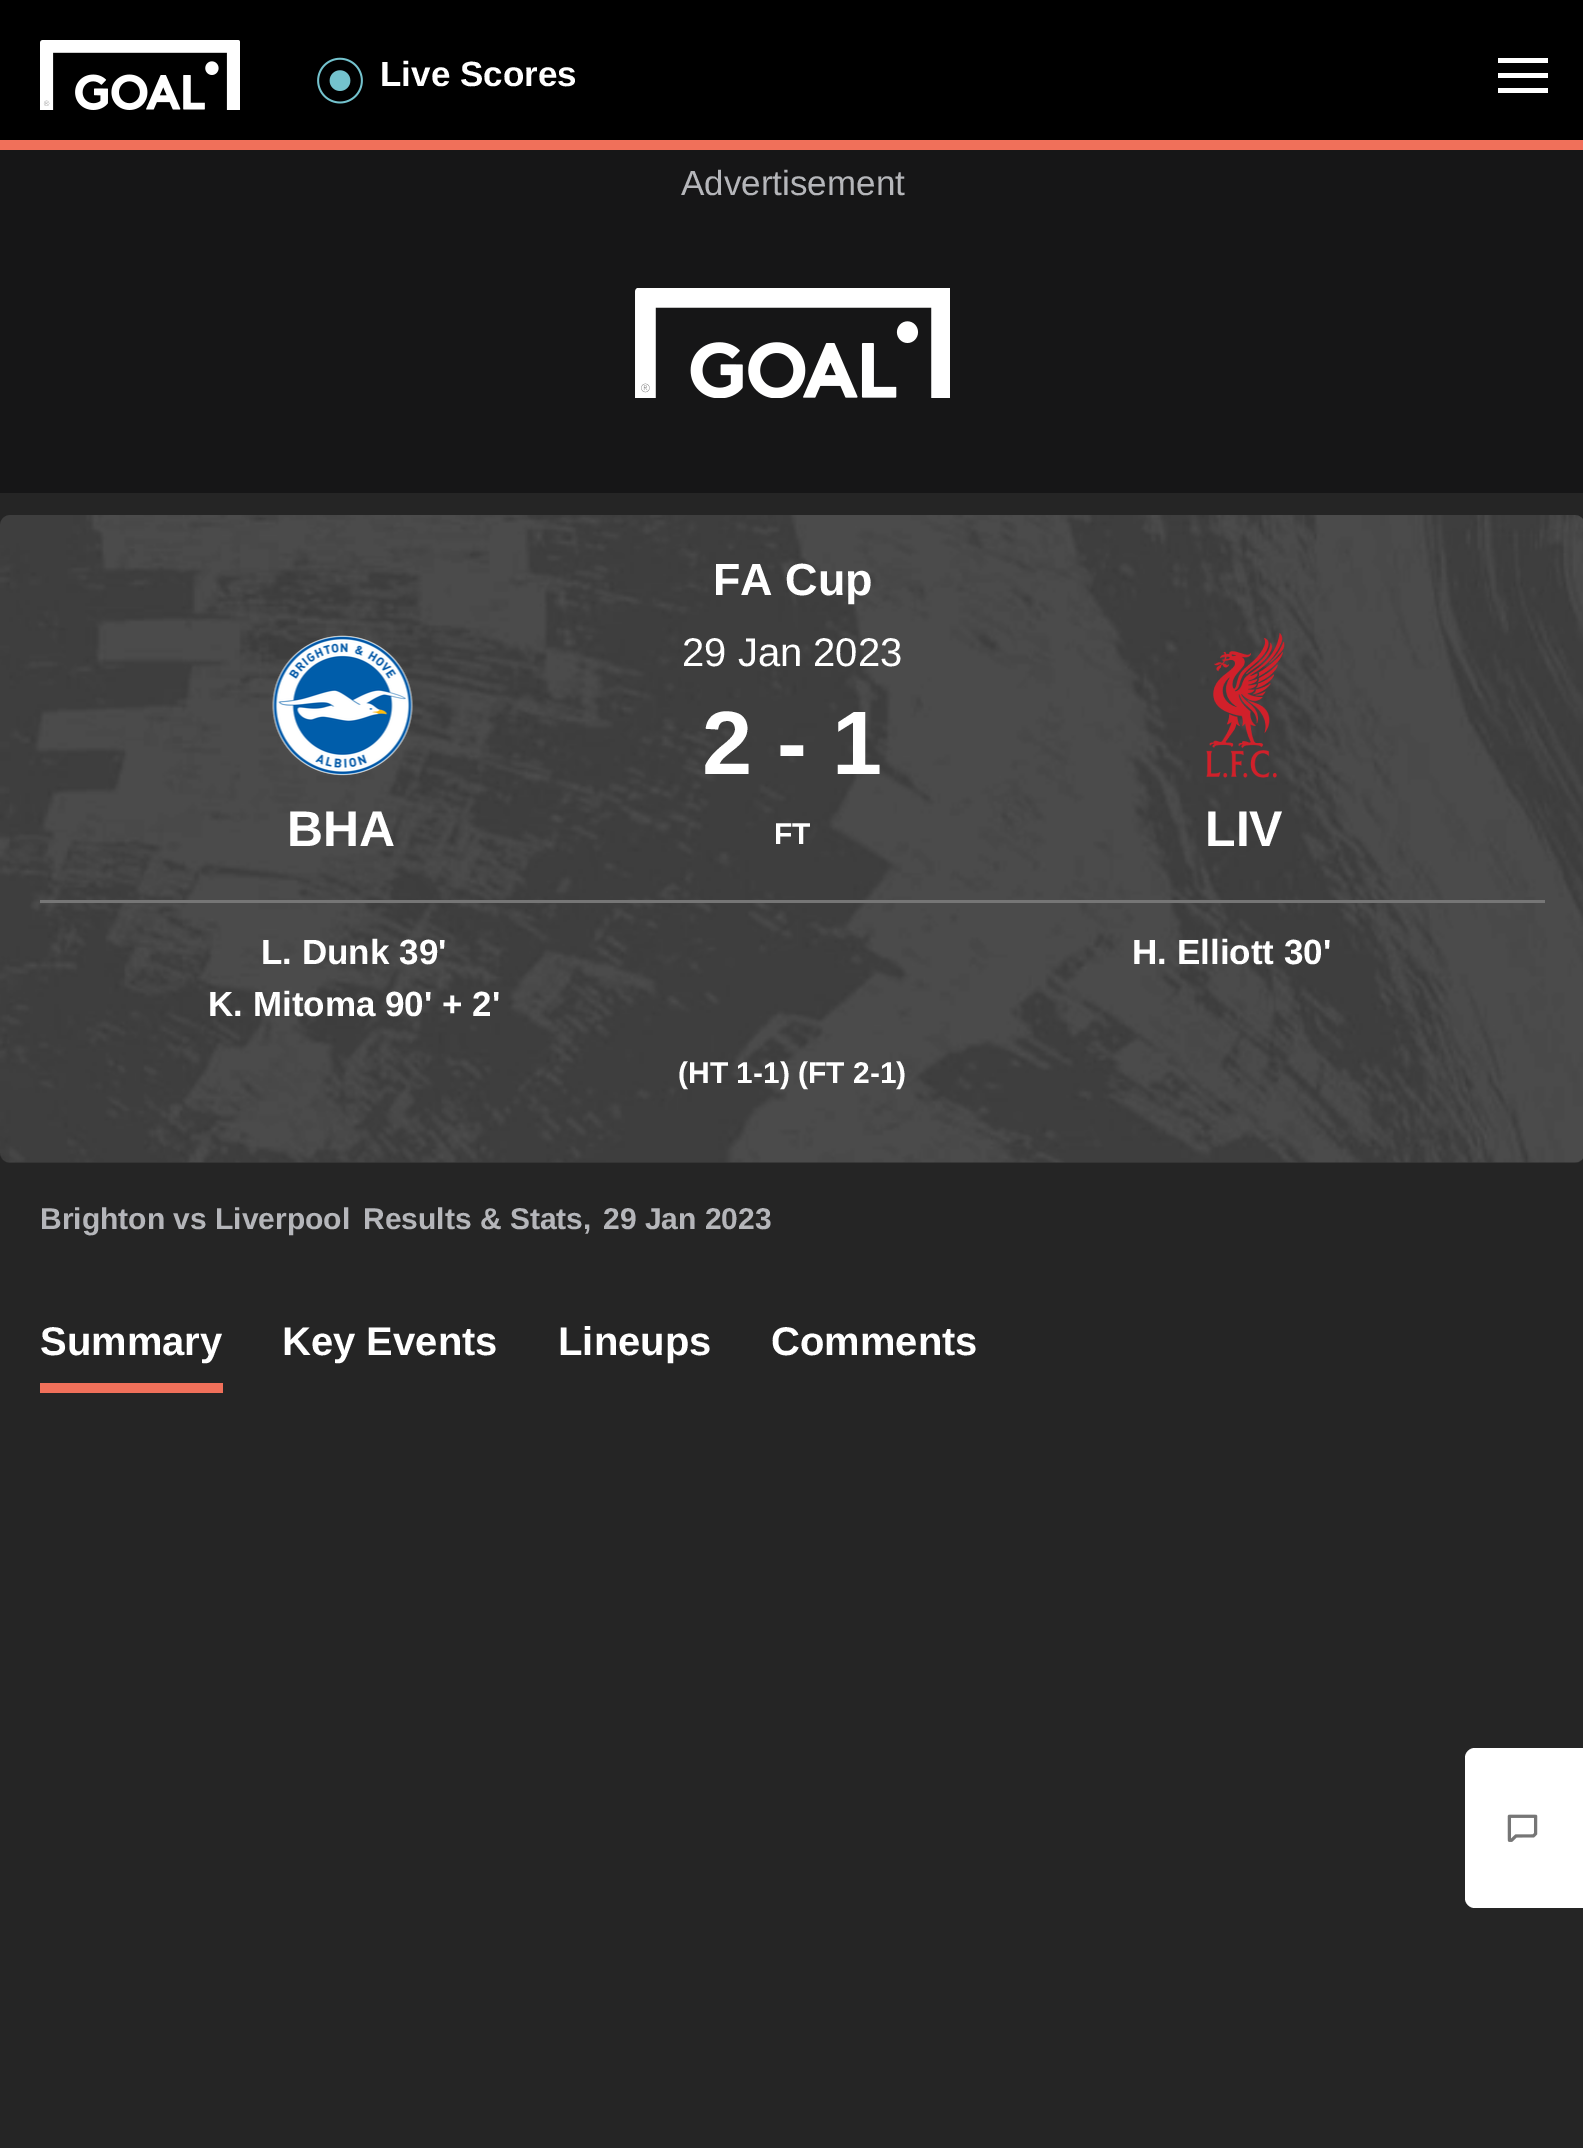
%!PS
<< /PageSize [1583 2148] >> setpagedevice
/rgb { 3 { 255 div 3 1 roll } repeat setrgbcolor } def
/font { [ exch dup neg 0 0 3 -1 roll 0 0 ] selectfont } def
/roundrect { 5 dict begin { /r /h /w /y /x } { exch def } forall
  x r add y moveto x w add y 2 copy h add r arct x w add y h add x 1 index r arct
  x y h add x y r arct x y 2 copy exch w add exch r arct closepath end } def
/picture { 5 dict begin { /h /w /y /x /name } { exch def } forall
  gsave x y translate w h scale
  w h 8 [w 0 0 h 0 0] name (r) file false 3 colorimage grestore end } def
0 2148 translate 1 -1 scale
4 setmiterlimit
37 37 37 rgb
0 0 1583 2148 rectfill
0 0 0 rgb
0 0 1583 140 rectfill
240 112 90 rgb
0 140 1583 10 rectfill
(img/1.rgb) 40 40 200 70 picture
(img/2.rgb) 317 57 46 47 picture
[
  [1498 58 50 5 255 255 255]
  [1498 73 50 5 255 255 255]
  [1498 88 50 5 255 255 255]
  [0 150 1583 343 22 22 23]
] { aload pop rgb rectfill } forall
(img/3.rgb) 635 288 315 110 picture
51 51 51 rgb
0 515 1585 648 10 roundrect fill
(img/4.rgb) 0 515 1583 648 picture
(img/5.rgb) 272 635 141 141 picture
(img/6.rgb) 1206 632 79 146 picture
118 118 118 rgb
40 900 1505 3 rectfill
240 112 90 rgb
40 1383 183 10 rectfill
255 255 255 rgb
1475 1748 moveto 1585 1748 lineto 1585 1908 lineto 1475 1908 lineto 1469.5 1908 1465 1903.5 1465 1898 curveto 1465 1758 lineto 1465 1752.5 1469.5 1748 1475 1748 curveto closepath fill
(img/7.rgb) 1507 1814 31 28 picture
/LiberationSans-Bold 35 font
380 86 moveto (Live Scores) show
/LiberationSans-Regular 35 font
181 182 186 rgb
681 195 moveto (Advertisement) show
/LiberationSans-Bold 45 font
255 255 255 rgb
713 595 moveto (FA Cup) show
/LiberationSans-Bold 50 font
287 846 moveto (BHA) show
/LiberationSans-Regular 40 font
682 666 moveto (29 Jan 2023) show
/LiberationSans-Bold 90 font
702 774 moveto (2 - 1) show
/LiberationSans-Bold 30 font
774 844 moveto (FT) show
/LiberationSans-Bold 50 font
1205 846 moveto (LIV) show
/LiberationSans-Bold 35 font
[
  [(L. Dunk 39') 261 964]
  [(K. Mitoma 90' + 2') 208 1016]
  [(H. Elliott 30') 1132 964]
] { aload pop moveto show } forall
/LiberationSans-Bold 30 font
678 1083 moveto (\(HT 1-1\) \(FT 2-1\)) show
181 182 186 rgb
[
  [(Brighton vs Liverpool) 40 1229]
  [(Results & Stats,) 363 1229]
  [(29 Jan 2023) 603 1229]
] { aload pop moveto show } forall
/LiberationSans-Bold 40 font
255 255 255 rgb
[
  [(Summary) 40 1355]
  [(Key Events) 282 1355]
  [(Lineups) 558 1355]
  [(Comments) 771 1355]
] { aload pop moveto show } forall
showpage
